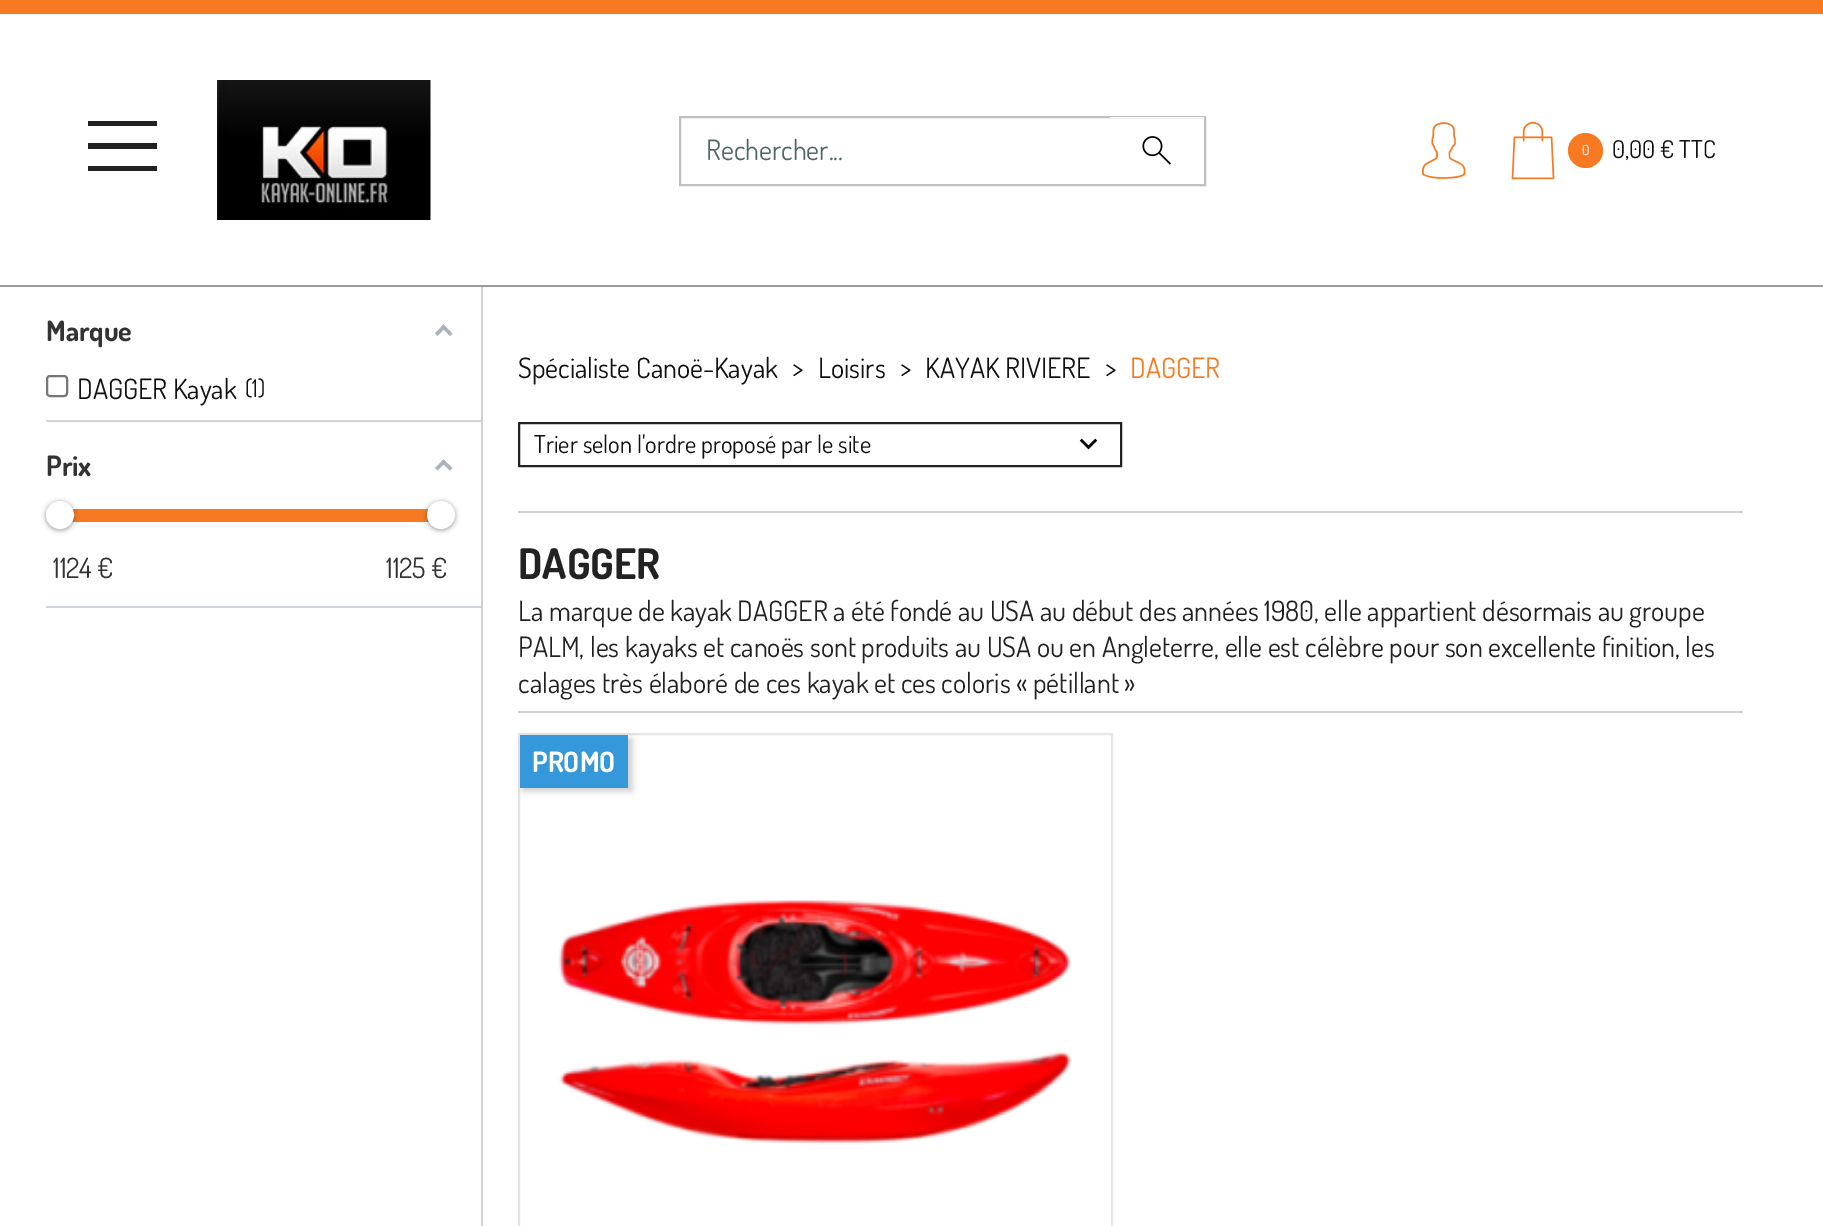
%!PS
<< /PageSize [1823 1226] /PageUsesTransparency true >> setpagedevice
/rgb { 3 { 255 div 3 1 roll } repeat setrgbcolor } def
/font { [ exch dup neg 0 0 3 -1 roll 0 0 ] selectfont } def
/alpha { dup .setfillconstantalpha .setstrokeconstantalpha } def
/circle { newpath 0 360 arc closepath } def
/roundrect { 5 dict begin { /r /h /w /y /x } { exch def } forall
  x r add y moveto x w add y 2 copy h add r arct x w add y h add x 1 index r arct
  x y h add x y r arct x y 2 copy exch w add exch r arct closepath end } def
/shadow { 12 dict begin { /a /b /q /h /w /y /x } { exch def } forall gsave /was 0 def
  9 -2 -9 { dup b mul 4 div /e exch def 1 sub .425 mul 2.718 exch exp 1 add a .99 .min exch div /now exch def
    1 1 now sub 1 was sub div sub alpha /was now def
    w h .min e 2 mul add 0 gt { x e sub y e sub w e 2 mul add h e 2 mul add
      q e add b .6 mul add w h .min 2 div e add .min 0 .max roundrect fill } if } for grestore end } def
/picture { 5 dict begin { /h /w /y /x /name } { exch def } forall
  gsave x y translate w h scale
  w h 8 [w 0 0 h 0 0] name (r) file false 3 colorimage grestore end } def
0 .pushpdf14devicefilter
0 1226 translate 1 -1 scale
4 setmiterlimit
255 255 255 rgb
0 0 1823 1226 rectfill
[
  [0 0 1823 14 247 122 35]
  [0 285 1823 2 155 155 155]
  [88 121 69 5 34 34 34]
  [88 143 69 6 34 34 34]
  [88 166 69 5 34 34 34]
] { aload pop rgb rectfill } forall
(img/1.rgb) 217 80 214 140 picture
191 191 191 rgb
2 setlinewidth
680 117 525 68 rectstroke
255 255 255 rgb
1110 117 94 1 rectfill
(img/2.rgb) 1142 136 29 29 picture
(img/3.rgb) 1422 122 44 57 picture
(img/4.rgb) 1511 121 44 59 picture
247 122 35 rgb
1585.5 150.5 17.5 circle fill
208 208 208 rgb
481 287 2 939 rectfill
208 213 219 rgb
46 420 435 2 rectfill
170 178 189 rgb
443.5 324.5 moveto 452.5 333.5 lineto 450 336 lineto 441 327 lineto closepath fill
443.5 324.5 moveto 446 327 lineto 437.5 336 lineto 435 333.5 lineto closepath fill
118 118 118 rgb
47 376 20 20 3 roundrect stroke
208 213 219 rgb
46 606 435 2 rectfill
170 178 189 rgb
443.5 459.5 moveto 452.5 468 lineto 450 470.5 lineto 441 462 lineto closepath fill
443.5 459.5 moveto 446 462 lineto 437.5 470.5 lineto 435 468 lineto closepath fill
247 122 35 rgb
72 509 357 13 rectfill
0 0 0 rgb
46 502 28 28 14 2.5 0.4 shadow
255 255 255 rgb
60 515 13 circle gsave fill grestore
stroke
0 0 0 rgb
427 502 28 28 14 2.5 0.4 shadow
255 255 255 rgb
441 515 13 circle gsave fill grestore
stroke
208 208 208 rgb
518 511 1225 2 rectfill
34 34 34 rgb
519 423 602 43 rectstroke
(img/5.rgb) 1079 438 19 12 picture
208 208 208 rgb
518 711 1225 2 rectfill
229 229 229 rgb
519 734 593 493 rectstroke
0 0 0 rgb
523 739 109 52 0 3.5 0.2 shadow
52 152 219 rgb
520 735 108 53 rectfill
(img/6.rgb) 558 899 514 246 picture
/Dosis-Regular 28 font
81 103 101 rgb
706 160 moveto (Rechercher...) show
/Dosis-Regular 14 font
255 255 255 rgb
1582 155 moveto (0) show
/Dosis-Regular 24.5 font
17 17 17 rgb
1612 158 moveto (0,00 € TTC) show
/Dosis-Bold 28 font
51 51 51 rgb
46 341 moveto (Marque) show
/Dosis-Regular 28 font
17 17 17 rgb
77 399 moveto (DAGGER Kayak) show
/Dosis-Regular 24.5 font
245 397 moveto (\(1\)) show
/Dosis-Bold 28 font
51 51 51 rgb
46 476 moveto (Prix) show
/Dosis-Regular 28 font
53 578 moveto (1124 €) show
386 578 moveto (1125 €) show
17 17 17 rgb
[
  [(Spécialiste Canoë-Kayak) 518 378]
  [(>) 792 378]
  [(Loisirs) 818 378]
  [(>) 900 378]
  [(KAYAK RIVIERE) 925 378]
  [(>) 1105 378]
] { aload pop moveto show } forall
247 122 35 rgb
1130 378 moveto (DAGGER) show
/Dosis-Regular 24.5 font
17 17 17 rgb
534 453 moveto (Trier selon l'ordre proposé par le site) show
/Dosis-Bold 42 font
34 34 34 rgb
518 579 moveto (DAGGER) show
/Dosis-Regular 28 font
[
  [(La marque de kayak DAGGER a été fondé au USA au début des années 1980, elle appartient désormais au groupe) 518 621]
  [(PALM, les kayaks et canoës sont produits au USA ou en Angleterre, elle est célèbre pour son excellente finition, les) 518 657]
  [(calages très élaboré de ces kayak et ces coloris « pétillant ») 518 693]
] { aload pop moveto show } forall
/Dosis-Bold 28 font
255 255 255 rgb
532 772 moveto (PROMO) show
.poppdf14devicefilter showpage
